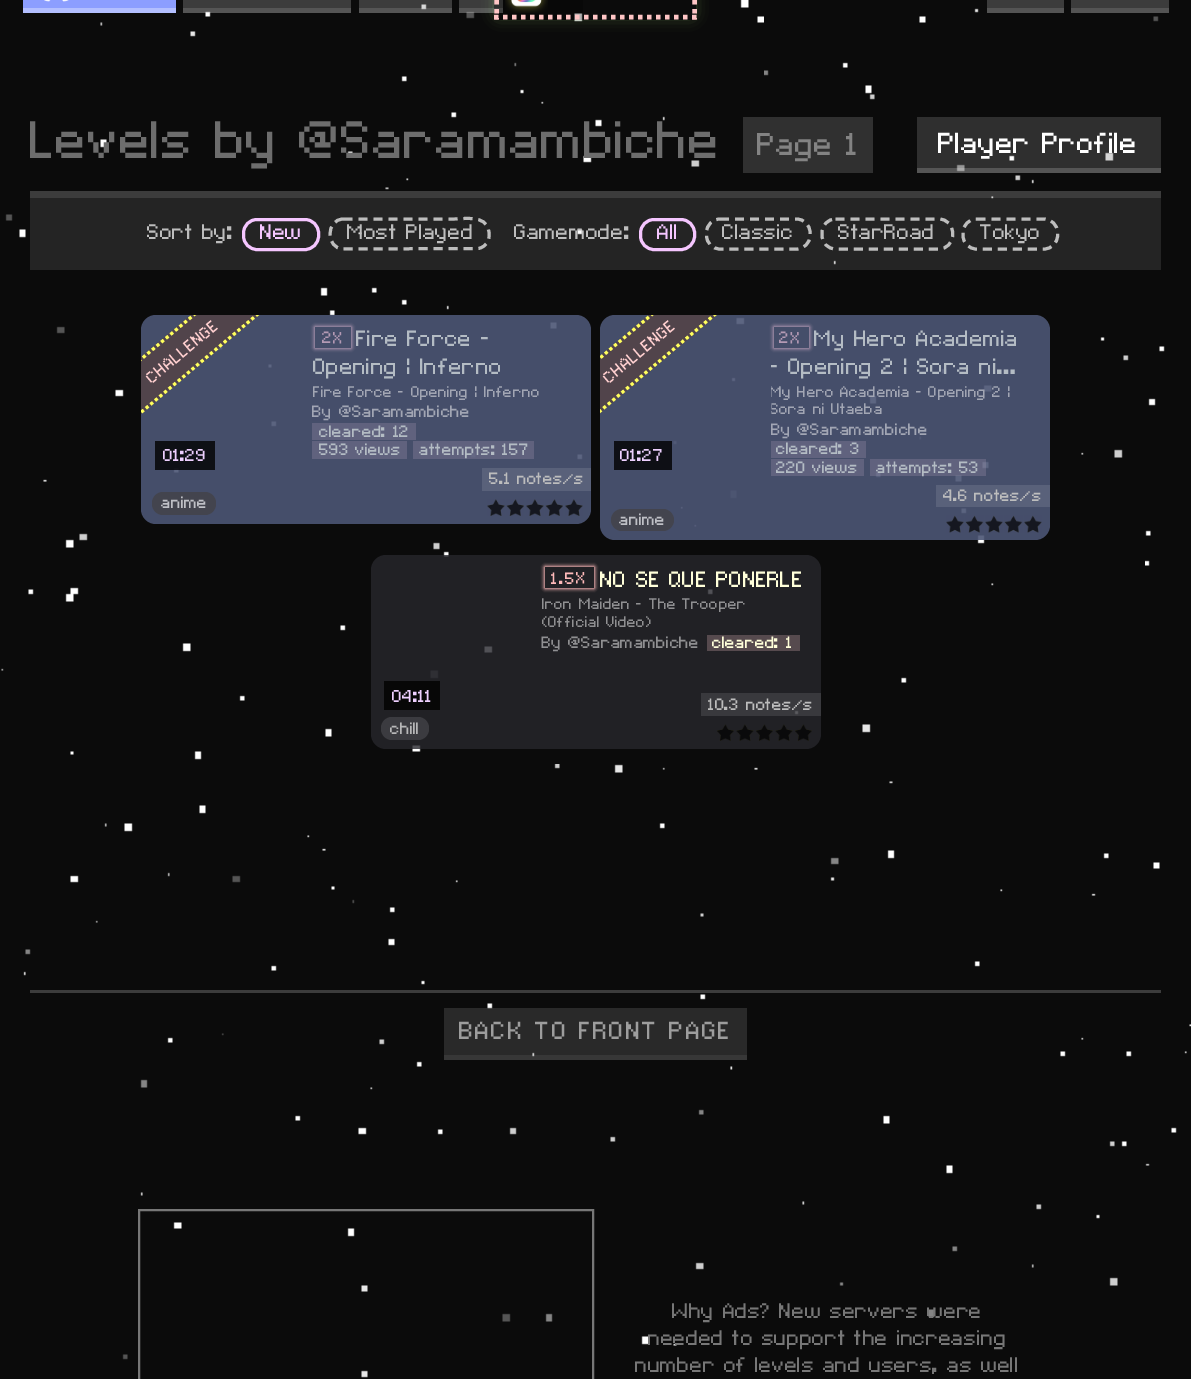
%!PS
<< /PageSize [1191 1379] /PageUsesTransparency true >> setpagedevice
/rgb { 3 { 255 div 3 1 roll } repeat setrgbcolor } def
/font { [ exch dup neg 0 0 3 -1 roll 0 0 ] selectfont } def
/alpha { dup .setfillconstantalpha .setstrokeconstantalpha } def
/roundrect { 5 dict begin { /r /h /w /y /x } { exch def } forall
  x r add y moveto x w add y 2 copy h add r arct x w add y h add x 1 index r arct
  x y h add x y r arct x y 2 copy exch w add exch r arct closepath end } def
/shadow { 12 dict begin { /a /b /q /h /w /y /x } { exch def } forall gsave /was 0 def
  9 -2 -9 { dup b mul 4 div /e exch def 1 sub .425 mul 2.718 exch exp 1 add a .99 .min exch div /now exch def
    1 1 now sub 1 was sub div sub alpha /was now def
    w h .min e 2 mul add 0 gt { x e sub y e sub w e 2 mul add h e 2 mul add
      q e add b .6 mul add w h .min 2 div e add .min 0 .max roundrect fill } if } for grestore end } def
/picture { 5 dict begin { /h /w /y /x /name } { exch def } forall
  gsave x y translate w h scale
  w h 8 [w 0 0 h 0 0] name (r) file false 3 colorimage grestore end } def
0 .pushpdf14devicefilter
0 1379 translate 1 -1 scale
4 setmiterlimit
255 255 255 rgb
0 0 1191 1379 rectfill
(img/1.rgb) 0 0 1191 1379 picture
140 158 255 rgb
23 0 153 8 rectfill
179 191 255 rgb
23 8 153 5 rectfill
(img/2.rgb) 44 0 25 2 picture
[
  [183 0 168 8 60 60 60]
] { aload pop rgb rectfill } forall
0.3 alpha
[
  [183 8 168 5 255 255 255]
] { aload pop rgb rectfill } forall
0.2 alpha
[
  [359 0 93 8 255 255 255]
] { aload pop rgb rectfill } forall
0.3 alpha
[
  [359 8 93 5 255 255 255]
] { aload pop rgb rectfill } forall
1 alpha
[
  [459 0 44 8 60 60 60]
] { aload pop rgb rectfill } forall
0.3 alpha
[
  [459 8 44 5 255 255 255]
] { aload pop rgb rectfill } forall
0.23 alpha
[
  [494 0 89 20 0 0 0]
] { aload pop rgb rectfill } forall
gsave
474 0 moveto 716 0 lineto 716 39 lineto 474 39 lineto closepath 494 -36 moveto 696 -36 lineto 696 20 lineto 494 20 lineto closepath eoclip newpath
1 alpha
174 255 137 rgb
498 -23 194 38 0 7.5 0.4 shadow
grestore
1 alpha
255 197 197 rgb
4.5 setlinewidth
[4.5 4.5] 0 setdash
694.5 -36 moveto 694.5 19.5 lineto stroke
494 17 moveto 696.5 17 lineto stroke
496.5 -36 moveto 496.5 19.5 lineto stroke
(img/3.rgb) 505 0 43 13 picture
(img/4.rgb) 511 0 31 7 picture
[
  [987 0 77 8 60 60 60]
  [987 8 77 5 84 84 84]
  [1071 0 98 8 60 60 60]
  [1071 8 98 5 84 84 84]
] { aload pop rgb rectfill } forall
0.2 alpha
[
  [30 191 1131 7 255 255 255]
] { aload pop rgb rectfill } forall
1 alpha
[
  [743 117 130 56 48 48 48]
] { aload pop rgb rectfill } forall
0.15 alpha
[
  [917 117 244 51 255 255 255]
] { aload pop rgb rectfill } forall
0.3 alpha
[
  [917 168 244 5 255 255 255]
] { aload pop rgb rectfill } forall
0.1 alpha
[
  [30 198 1131 72 255 255 255]
] { aload pop rgb rectfill } forall
1 alpha
245 198 255 rgb
3 setlinewidth
[] 0 setdash
243.5 219.5 75 30 13.5 roundrect stroke
189 189 189 rgb
[9 6] 0 setdash
343.5 219 moveto 453.5 219 lineto 463.5 219 485.5 214.5 488.5 230 curveto 489.5 233 489.5 237.5 488 241 curveto 486 245 482.5 248 478 248.5 curveto 343.5 249 lineto 325.5 249 325.5 219 343.5 219 curveto closepath stroke
245 198 255 rgb
[] 0 setdash
640.5 219.5 54 30 13.5 roundrect stroke
189 189 189 rgb
[9 6] 0 setdash
720 219 moveto 796.5 219 lineto 804 219 810 225 810 232.5 curveto 810 235.5 lineto 810 243 804 249 796.5 249 curveto 720 249 lineto 712.5 249 706.5 243 706.5 235.5 curveto 706.5 232.5 lineto 706.5 225 712.5 219 720 219 curveto closepath stroke
835.5 219 moveto 939 219 lineto 946.5 219 952.5 225 952.5 232.5 curveto 952.5 235.5 lineto 952.5 243 946.5 249 939 249 curveto 835.5 249 lineto 828 249 822 243 822 235.5 curveto 822 232.5 lineto 822 225 828 219 835.5 219 curveto closepath stroke
976.5 219 moveto 1044 219 lineto 1051.5 219 1057.5 225 1057.5 232.5 curveto 1057.5 235.5 lineto 1057.5 243 1051.5 249 1044 249 curveto 976.5 249 lineto 969 249 963 243 963 235.5 curveto 963 232.5 lineto 963 225 969 219 976.5 219 curveto closepath stroke
0.8 alpha
38 38 44 rgb
141 315 450 209 15 roundrect fill
gsave
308 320 moveto 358 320 lineto 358 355 lineto 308 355 lineto closepath 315 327 moveto 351 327 lineto 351 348 lineto 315 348 lineto closepath eoclip newpath
1 alpha
255 186 186 rgb
315 327 36 21 0 2 1 shadow
315 327 36 21 0 2 1 shadow
grestore
1 alpha
(img/5.rgb) 333 332 9 12 picture
[
  [312 423 104 17 86 74 78]
  [312 441 95 18 86 74 78]
] { aload pop rgb rectfill } forall
0.24 alpha
[
  [413 441 121 18 255 205 205]
] { aload pop rgb rectfill } forall
0.8 alpha
38 38 44 rgb
600 315 450 225 15 roundrect fill
gsave
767 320 moveto 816 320 lineto 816 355 lineto 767 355 lineto closepath 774 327 moveto 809 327 lineto 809 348 lineto 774 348 lineto closepath eoclip newpath
1 alpha
255 186 186 rgb
774 327 35 21 0 2 1 shadow
774 327 35 21 0 2 1 shadow
grestore
1 alpha
(img/9.rgb) 790 332 9 12 picture
[
  [771 441 95 17 86 74 78]
  [771 459 93 17 86 74 78]
] { aload pop rgb rectfill } forall
0.24 alpha
[
  [870 459 116 17 255 205 205]
] { aload pop rgb rectfill } forall
0.8 alpha
38 38 44 rgb
371 555 450 194 15 roundrect fill
gsave
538 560 moveto 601 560 lineto 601 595 lineto 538 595 lineto closepath 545 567 moveto 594 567 lineto 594 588 lineto 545 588 lineto closepath eoclip newpath
1 alpha
255 186 186 rgb
545 567 49 21 0 2 1 shadow
545 567 49 21 0 2 1 shadow
grestore
1 alpha
(img/5.rgb) 576 572 9 12 picture
(img/12.rgb) 541 636 19 16 picture
[
  [707 635 93 16 86 74 78]
  [384 681 56 29 7 7 7]
] { aload pop rgb rectfill } forall
0.11 alpha
[
  [701 693 120 23 255 255 255]
] { aload pop rgb rectfill } forall
1 alpha
59 59 64 rgb
381 717 48 23 11 roundrect fill
(img/13.rgb) 717 724 17 17 picture
(img/14.rgb) 736 724 18 17 picture
(img/13.rgb) 756 724 17 17 picture
(img/14.rgb) 775 724 18 17 picture
(img/13.rgb) 795 724 17 17 picture
[
  [30 990 1131 3 60 60 60]
] { aload pop rgb rectfill } forall
0.12 alpha
[
  [444 1008 303 47 255 255 255]
] { aload pop rgb rectfill } forall
0.18 alpha
[
  [444 1055 303 5 255 255 255]
] { aload pop rgb rectfill } forall
1 alpha
119 119 119 rgb
2 setlinewidth
[] 0 setdash
139 1210 454 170 rectstroke
/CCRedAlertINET-Regular 67.5 font
109 109 109 rgb
30 158 moveto (Levels by @Saramambiche) show
/CCRedAlertINET-Regular 40.5 font
131 131 131 rgb
757 155 moveto (Page 1) show
/CCRedAlertINET-Regular 37 font
255 255 255 rgb
938 153 moveto (Player Profile) show
/CCRedAlertINET-Regular 27 font
189 189 189 rgb
147 239 moveto (Sort by:) show
245 198 255 rgb
260 239 moveto (New) show
189 189 189 rgb
347 239 moveto (Most Played) show
514 239 moveto (Gamemode:) show
245 198 255 rgb
657 239 moveto (All) show
189 189 189 rgb
[
  [(Classic) 722 239]
  [(StarRoad) 838 239]
  [(Tokyo) 980 239]
] { aload pop moveto show } forall
/CCRedAlertINET-Regular 21 font
255 186 186 rgb
322 343 moveto 1.5 0 (2) ashow
/CCRedAlertINET-Regular 28.5 font
255 255 218 rgb
356 346 moveto (Fire Force -) show
313 374 moveto (Opening | Inferno) show
/CCRedAlertINET-Regular 21 font
[
  [(cleared: 12) 319 437]
  [(593 views) 319 455]
  [(attempts: 157) 419 455]
] { aload pop moveto show } forall
0.5 alpha
105 122 174 rgb
141 315 450 209 15 roundrect fill
0.75 alpha
85 65 65 rgb
259 315 moveto 141 414 lineto 141 357 lineto 191 315 lineto closepath fill
gsave
141 315 450 209 15 roundrect clip newpath
1 alpha
255 255 93 rgb
3 setlinewidth
[3 3] 0 setdash
46.5 438.5 moveto 292 232.5 lineto stroke
72.5 470 moveto 318 263.5 lineto stroke
grestore
1 alpha
255 207 207 rgb
gsave 152 384 translate -40 rotate 0 0 moveto 0.75 0 (CHALLENGE) ashow grestore
162 166 180 rgb
339 417 moveto (@Saramambiche) show
(img/6.rgb) 312 405 18 16 picture
/CCRedAlertINET-Regular 19.5 font
313 397 moveto (Fire Force - Opening | Inferno) show
0.8 alpha
0 0 0 rgb
155 441 60 29 rectfill
/CCRedAlertINET-Regular 22 font
1 alpha
238 208 255 rgb
163 461 moveto (01:29) show
89 97 122 rgb
482 468 109 23 rectfill
/CCRedAlertINET-Regular 21 font
189 189 189 rgb
489 484 moveto (5.1 notes/s) show
67 68 78 rgb
152 492 64 23 11 roundrect fill
191 192 198 rgb
161 508 moveto (anime) show
(img/7.rgb) 487 499 18 17 picture
(img/8.rgb) 506 499 18 17 picture
(img/7.rgb) 526 499 18 17 picture
(img/8.rgb) 545 499 18 17 picture
(img/7.rgb) 565 499 18 17 picture
255 186 186 rgb
779 343 moveto 1.5 0 (2) ashow
/CCRedAlertINET-Regular 28.5 font
255 255 218 rgb
814 346 moveto (My Hero Academia) show
gsave
771 320 266 63 rectclip
770 374 moveto (- Opening 2 | Sora ni…) show
grestore
/CCRedAlertINET-Regular 21 font
[
  [(cleared: 3) 776 454]
  [(220 views) 776 473]
  [(attempts: 53) 876 473]
] { aload pop moveto show } forall
0.5 alpha
105 122 174 rgb
600 315 450 225 15 roundrect fill
1 alpha
81 68 75 rgb
717 315 moveto 600 413 lineto 600 356 lineto 649 315 lineto closepath fill
gsave
600 315 450 225 15 roundrect clip newpath
255 255 93 rgb
3 setlinewidth
[3 3] 0 setdash
504 438.5 moveto 749.5 232.5 lineto stroke
530 470 moveto 775.5 263.5 lineto stroke
grestore
255 207 207 rgb
gsave 609 384 translate -40 rotate 0 0 moveto 0.75 0 (CHALLENGE) ashow grestore
162 166 180 rgb
797 435 moveto (@Saramambiche) show
(img/6.rgb) 771 423 18 16 picture
gsave
771 378 266 41 rectclip
/CCRedAlertINET-Regular 19.5 font
770 414 moveto (Sora ni Utaeba) show
770 397 moveto (My Hero Academia - Opening 2 |) show
grestore
14 15 21 rgb
614 441 58 29 rectfill
/CCRedAlertINET-Regular 22 font
238 208 255 rgb
620 461 moveto (01:27) show
89 97 122 rgb
936 485 114 22 rectfill
/CCRedAlertINET-Regular 21 font
189 189 189 rgb
943 501 moveto (4.6 notes/s) show
67 68 78 rgb
611 509 63 22 11 roundrect fill
191 192 198 rgb
619 525 moveto (anime) show
(img/10.rgb) 946 515 18 18 picture
(img/11.rgb) 965 515 19 18 picture
(img/10.rgb) 985 515 18 18 picture
(img/11.rgb) 1004 515 19 18 picture
(img/10.rgb) 1024 515 18 18 picture
255 186 186 rgb
551 584 moveto 1.5 0 (1.5) ashow
/CCRedAlertINET-Regular 28.5 font
255 255 218 rgb
600 587 moveto (NO SE QUE PONERLE) show
gsave
542 590 265 42 rectclip
/CCRedAlertINET-Regular 19.5 font
144 144 146 rgb
542 609 moveto (Iron Maiden - The Trooper) show
542 627 moveto (\(Official Video\)) show
grestore
/CCRedAlertINET-Regular 21 font
144 144 146 rgb
568 648 moveto (@Saramambiche) show
255 255 218 rgb
712 648 moveto (cleared: 1) show
/CCRedAlertINET-Regular 22 font
238 208 255 rgb
392 702 moveto (04:11) show
/CCRedAlertINET-Regular 21 font
189 189 189 rgb
708 710 moveto (10.3 notes/s) show
183 183 184 rgb
390 734 moveto (chill) show
/CCRedAlertINET-Regular 31.5 font
157 157 157 rgb
459 1039 moveto 1.5 0 (BACK TO FRONT PAGE) ashow
/CCRedAlertINET-Regular 27 font
119 119 119 rgb
[
  [(Why Ads? New servers were) 672 1318]
  [(needed to support the increasing) 648 1345]
  [(number of levels and users, as well) 635 1372]
] { aload pop moveto show } forall
.poppdf14devicefilter showpage
